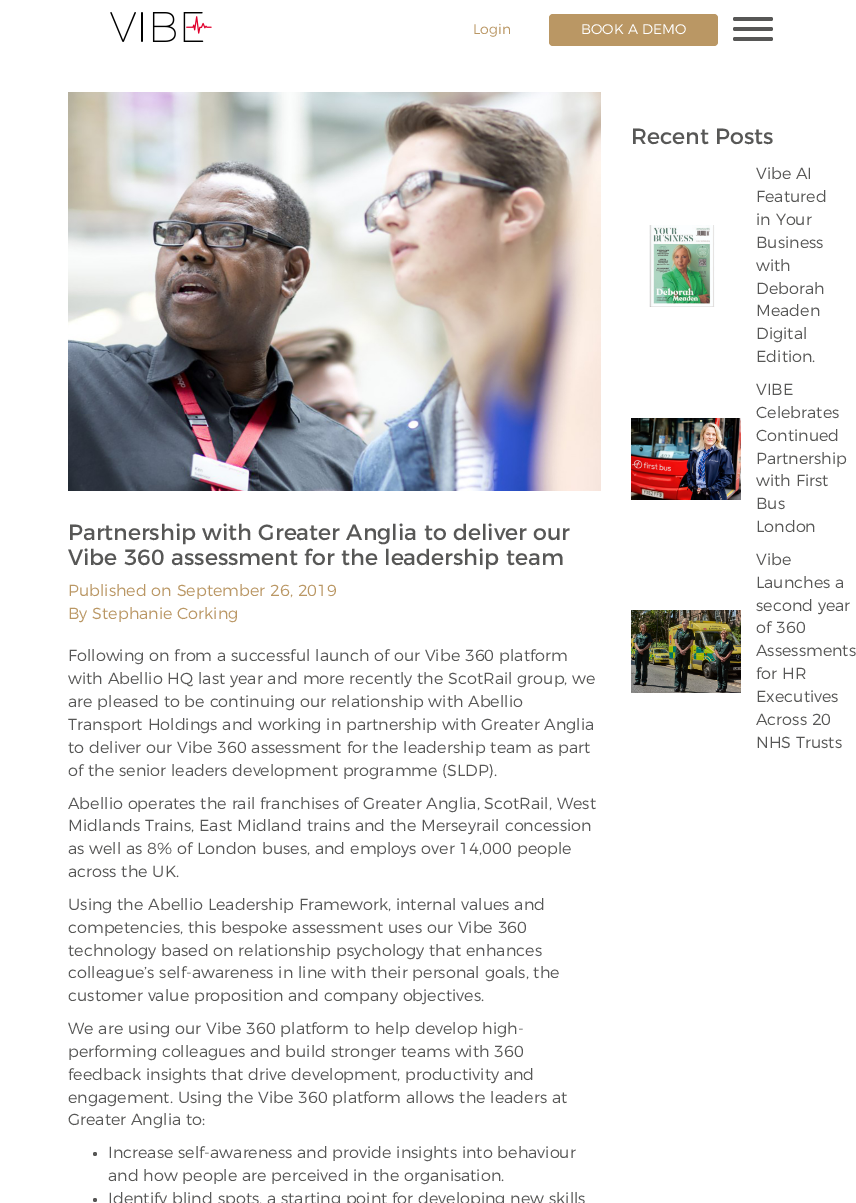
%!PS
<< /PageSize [856 1203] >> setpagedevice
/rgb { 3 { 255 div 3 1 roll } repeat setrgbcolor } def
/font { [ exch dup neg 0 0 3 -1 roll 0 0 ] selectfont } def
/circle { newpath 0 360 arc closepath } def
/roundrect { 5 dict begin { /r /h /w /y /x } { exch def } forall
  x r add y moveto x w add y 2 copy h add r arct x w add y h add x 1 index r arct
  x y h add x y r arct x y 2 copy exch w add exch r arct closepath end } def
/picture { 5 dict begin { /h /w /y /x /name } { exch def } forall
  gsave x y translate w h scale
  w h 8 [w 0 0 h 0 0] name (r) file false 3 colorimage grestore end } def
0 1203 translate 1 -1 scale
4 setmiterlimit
255 255 255 rgb
0 0 856 1203 rectfill
(img/1.rgb) 110 12 102 30 picture
186 151 100 rgb
549 14 169 32 4 roundrect fill
87 87 86 rgb
733 17 40 4 2 roundrect fill
733 27 40 4 2 roundrect fill
733 37 40 4 2 roundrect fill
(img/2.rgb) 649 225 66 82 picture
(img/3.rgb) 631 418 110 82 picture
(img/4.rgb) 631 610 110 83 picture
(img/5.rgb) 68 92 533 399 picture
95 1154 2 circle fill
95 1200 2 circle fill
/Montserrat-Light 14 font
186 151 100 rgb
473 34 moveto (Login) show
255 255 255 rgb
581 34 moveto (BOOK A DEMO) show
/Montserrat-Regular 22 font
87 87 86 rgb
631 144 moveto (Recent Posts) show
/Montserrat-Light 16 font
[
  [(Vibe AI) 756 179]
  [(Featured) 756 202]
  [(in Your) 756 225]
  [(Business) 756 248]
  [(with) 756 271]
  [(Deborah) 756 294]
  [(Meaden) 756 316]
  [(Digital) 756 339]
  [(Edition.) 756 362]
  [(VIBE) 756 395]
  [(Celebrates) 756 418]
  [(Continued) 756 441]
  [(Partnership) 756 464]
  [(with First) 756 486]
  [(Bus) 756 509]
  [(London) 756 532]
  [(Vibe) 756 565]
  [(Launches a) 756 588]
  [(second year) 756 611]
  [(of 360) 756 633]
  [(Assessments) 756 656]
  [(for HR) 756 679]
  [(Executives) 756 702]
  [(Across 20) 756 725]
  [(NHS Trusts) 756 748]
] { aload pop moveto show } forall
/Montserrat-Regular 22 font
68 540 moveto (Partnership with Greater Anglia to deliver our) show
68 565 moveto (Vibe 360 assessment for the leadership team) show
/Montserrat-Light 16 font
186 151 100 rgb
68 596 moveto (Published on September 26, 2019) show
68 619 moveto (By Stephanie Corking) show
87 87 86 rgb
[
  [(Following on from a successful launch of our Vibe 360 platform) 68 661]
  [(with Abellio HQ last year and more recently the ScotRail group, we) 68 684]
  [(are pleased to be continuing our relationship with Abellio) 68 707]
  [(Transport Holdings and working in partnership with Greater Anglia) 68 730]
  [(to deliver our Vibe 360 assessment for the leadership team as part) 68 753]
  [(of the senior leaders development programme \(SLDP\).) 68 776]
  [(Abellio operates the rail franchises of Greater Anglia, ScotRail, West) 68 809]
  [(Midlands Trains, East Midland trains and the Merseyrail concession) 68 831]
  [(as well as 8% of London buses, and employs over 14,000 people) 68 854]
  [(across the UK.) 68 877]
  [(Using the Abellio Leadership Framework, internal values and) 68 910]
  [(competencies, this bespoke assessment uses our Vibe 360) 68 933]
  [(technology based on relationship psychology that enhances) 68 956]
  [(colleague’s self-awareness in line with their personal goals, the) 68 978]
  [(customer value proposition and company objectives.) 68 1001]
  [(We are using our Vibe 360 platform to help develop high-) 68 1034]
  [(performing colleagues and build stronger teams with 360) 68 1057]
  [(feedback insights that drive development, productivity and) 68 1080]
  [(engagement. Using the Vibe 360 platform allows the leaders at) 68 1103]
  [(Greater Anglia to:) 68 1125]
  [(Increase self-awareness and provide insights into behaviour) 108 1158]
  [(and how people are perceived in the organisation.) 108 1181]
  [(Identify blind spots, a starting point for developing new skills) 108 1204]
] { aload pop moveto show } forall
showpage
